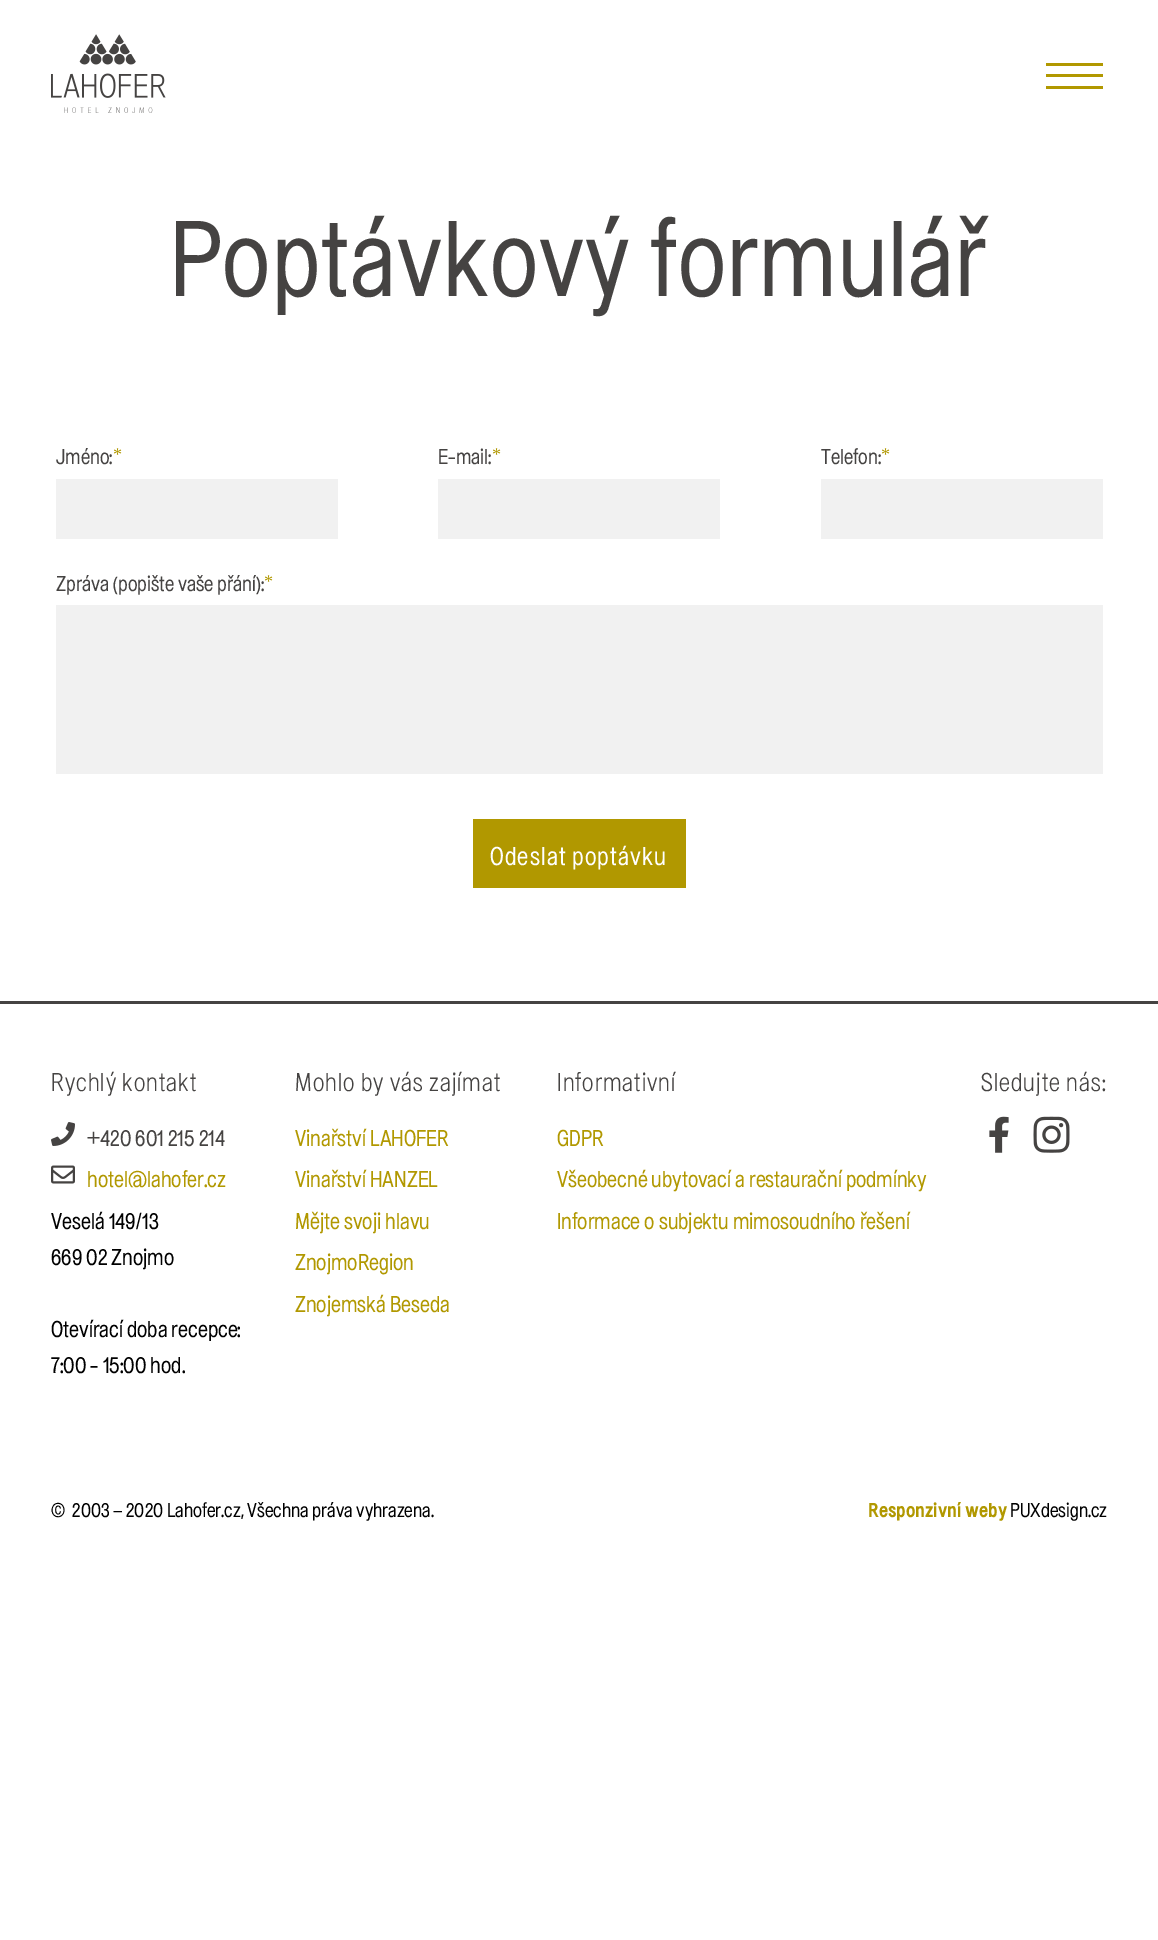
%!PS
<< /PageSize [1158 1940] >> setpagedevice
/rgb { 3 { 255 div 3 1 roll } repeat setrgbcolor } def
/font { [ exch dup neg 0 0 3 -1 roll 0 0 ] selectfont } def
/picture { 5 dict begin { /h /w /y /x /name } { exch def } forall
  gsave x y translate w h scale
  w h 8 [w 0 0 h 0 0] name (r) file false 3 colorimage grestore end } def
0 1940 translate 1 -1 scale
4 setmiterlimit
255 255 255 rgb
0 0 1158 1940 rectfill
(img/1.rgb) 51 34 115 79 picture
[
  [1046 74 57 3 177 152 0]
  [1046 63 57 3 177 152 0]
  [1046 86 57 3 177 152 0]
  [56 479 282 60 241 241 241]
  [438 479 282 60 241 241 241]
  [821 479 282 60 241 241 241]
  [56 605 1047 169 241 241 241]
  [473 819 213 69 177 152 0]
  [0 1001 1158 3 69 67 66]
] { aload pop rgb rectfill } forall
(img/2.rgb) 51 1122 24 24 picture
(img/3.rgb) 51 1165 24 19 picture
(img/4.rgb) 989 1116 20 37 picture
(img/5.rgb) 1033 1116 37 37 picture
/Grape-Regular 112.5 font
170 296 moveto 1.1 0 (Poptávkový formulář) ashow
/Grape-Regular 22.5 font
56 464 moveto (Jméno:) show
/LiberationSerif-Regular 18 font
177 152 0 rgb
113 460 moveto (*) show
/Grape-Regular 22.5 font
69 67 66 rgb
438 464 moveto (E-mail:) show
/LiberationSerif-Regular 18 font
177 152 0 rgb
492 460 moveto (*) show
/Grape-Regular 22.5 font
69 67 66 rgb
821 464 moveto (Telefon:) show
/LiberationSerif-Regular 18 font
177 152 0 rgb
881 460 moveto (*) show
/Grape-Regular 22.5 font
69 67 66 rgb
56 591 moveto (Zpráva \(popište vaše přání\):) show
/LiberationSerif-Regular 18 font
177 152 0 rgb
264 587 moveto (*) show
/Grape-Regular 27 font
255 255 255 rgb
490 865 moveto 1.1 0 (Odeslat poptávku) ashow
/Grape-Light 27 font
69 67 66 rgb
51 1091 moveto 1.1 0 (Rychlý kontakt) ashow
/Grape-Regular 24 font
87 1146 moveto (+420 601 215 214) show
177 152 0 rgb
87 1187 moveto (hotel@lahofer.cz) show
0 0 0 rgb
[
  [(Veselá 149/13) 51 1229]
  [(669 02 Znojmo) 51 1265]
  [(Otevírací doba recepce:) 51 1337]
  [(7:00 - 15:00 hod.) 51 1373]
] { aload pop moveto show } forall
/Grape-Light 27 font
69 67 66 rgb
295 1091 moveto 1.1 0 (Mohlo by vás zajímat) ashow
/Grape-Regular 24 font
177 152 0 rgb
[
  [(Vinařství LAHOFER) 295 1146]
  [(Vinařství HANZEL) 295 1187]
  [(Mějte svoji hlavu) 295 1229]
  [(ZnojmoRegion) 295 1270]
  [(Znojemská Beseda) 295 1312]
] { aload pop moveto show } forall
/Grape-Light 27 font
69 67 66 rgb
557 1091 moveto 1.1 0 (Informativní) ashow
/Grape-Regular 24 font
177 152 0 rgb
[
  [(GDPR) 557 1146]
  [(Všeobecné ubytovací a restaurační podmínky) 557 1187]
  [(Informace o subjektu mimosoudního řešení) 557 1229]
] { aload pop moveto show } forall
/Grape-Light 27 font
69 67 66 rgb
981 1091 moveto 1.1 0 (Sledujte nás:) ashow
/Grape-Regular 21 font
0 0 0 rgb
51 1517 moveto (©  2003 – 2020 Lahofer.cz, Všechna práva vyhrazena.) show
/Grape-Bold 21 font
177 152 0 rgb
868 1517 moveto (Responzivní weby) show
/Grape-Regular 21 font
0 0 0 rgb
1010 1517 moveto (PUXdesign.cz) show
showpage
